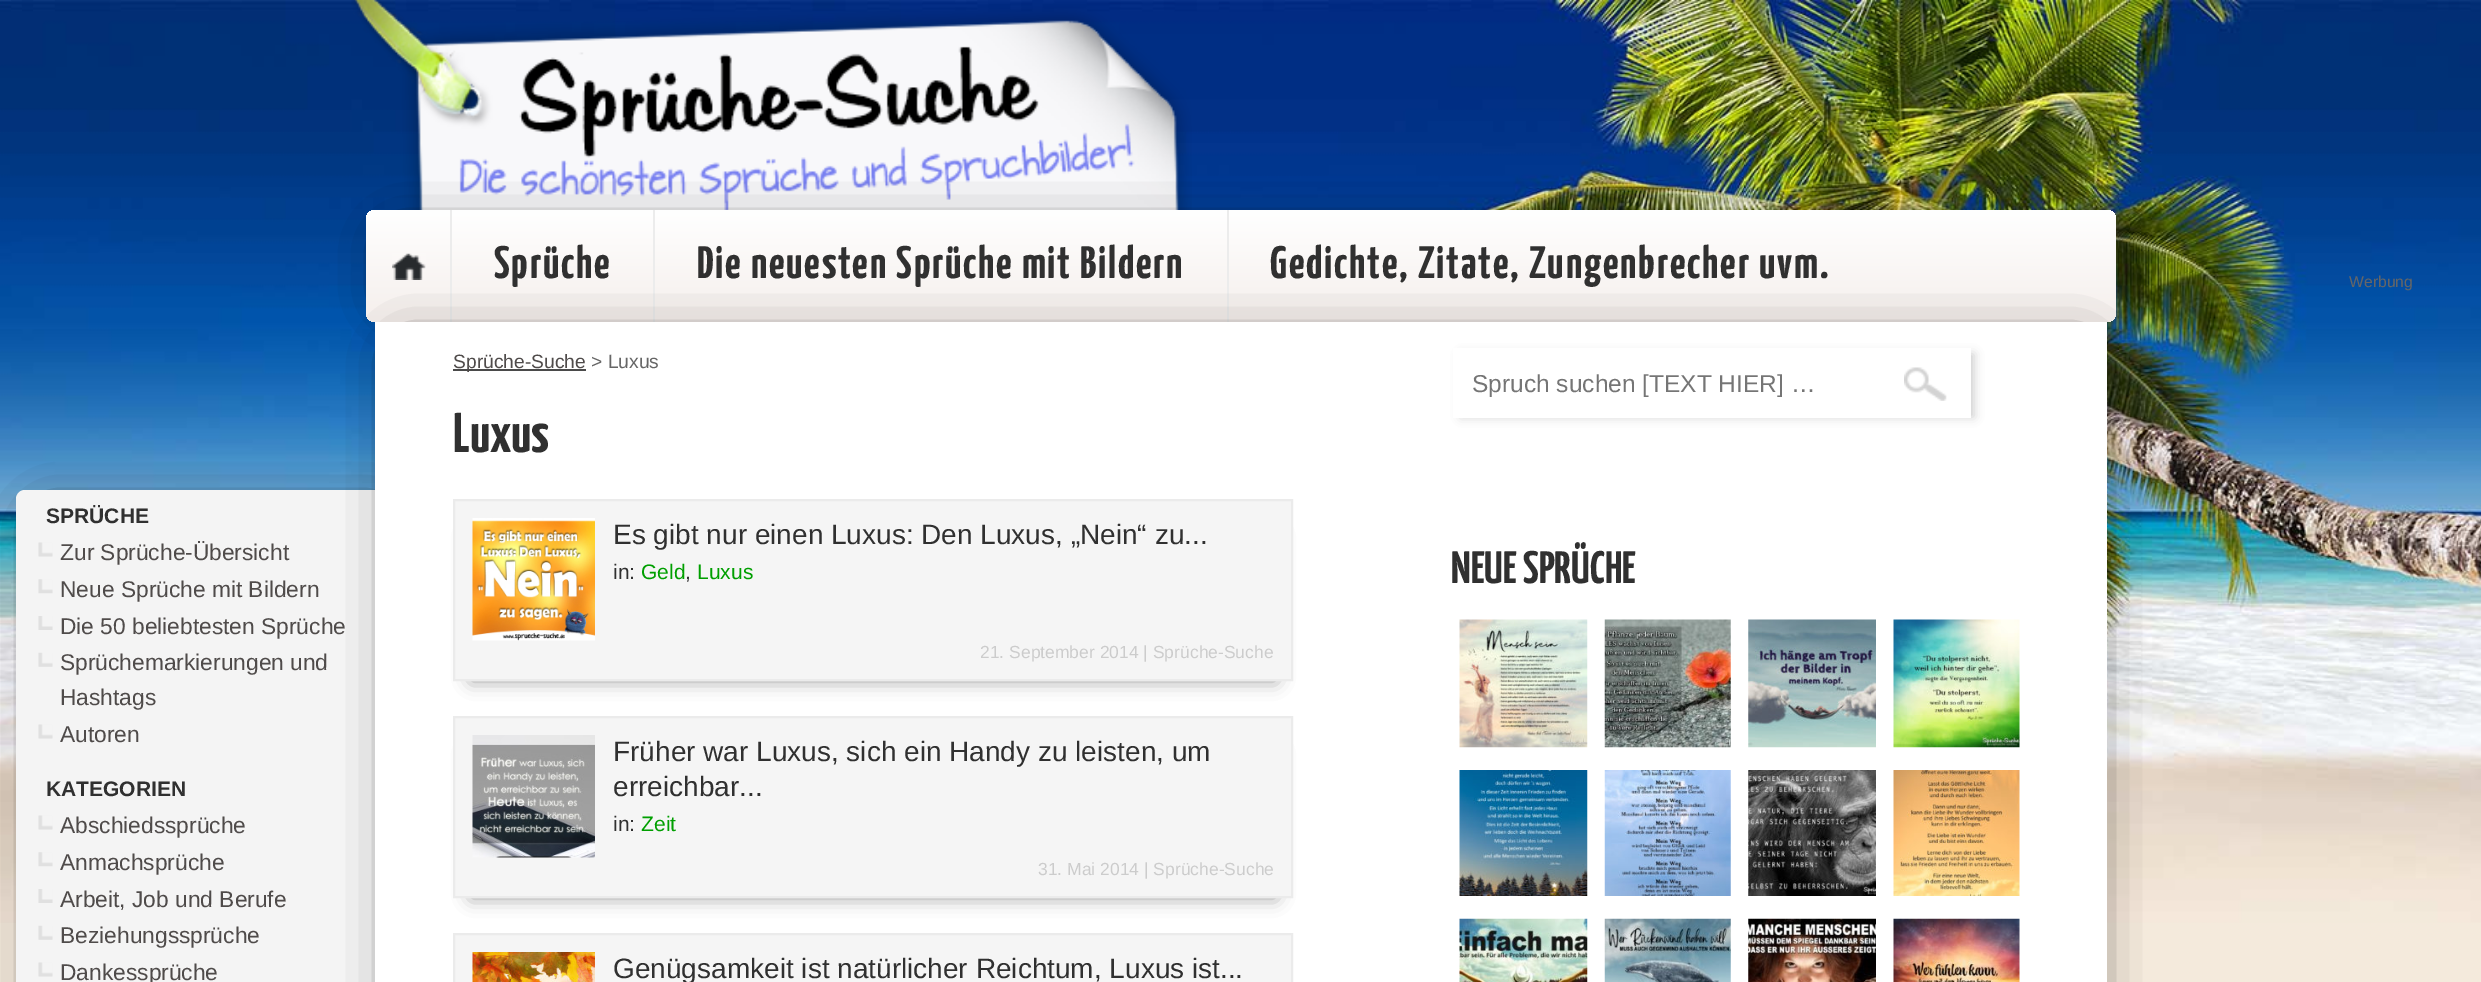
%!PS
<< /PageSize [2481 982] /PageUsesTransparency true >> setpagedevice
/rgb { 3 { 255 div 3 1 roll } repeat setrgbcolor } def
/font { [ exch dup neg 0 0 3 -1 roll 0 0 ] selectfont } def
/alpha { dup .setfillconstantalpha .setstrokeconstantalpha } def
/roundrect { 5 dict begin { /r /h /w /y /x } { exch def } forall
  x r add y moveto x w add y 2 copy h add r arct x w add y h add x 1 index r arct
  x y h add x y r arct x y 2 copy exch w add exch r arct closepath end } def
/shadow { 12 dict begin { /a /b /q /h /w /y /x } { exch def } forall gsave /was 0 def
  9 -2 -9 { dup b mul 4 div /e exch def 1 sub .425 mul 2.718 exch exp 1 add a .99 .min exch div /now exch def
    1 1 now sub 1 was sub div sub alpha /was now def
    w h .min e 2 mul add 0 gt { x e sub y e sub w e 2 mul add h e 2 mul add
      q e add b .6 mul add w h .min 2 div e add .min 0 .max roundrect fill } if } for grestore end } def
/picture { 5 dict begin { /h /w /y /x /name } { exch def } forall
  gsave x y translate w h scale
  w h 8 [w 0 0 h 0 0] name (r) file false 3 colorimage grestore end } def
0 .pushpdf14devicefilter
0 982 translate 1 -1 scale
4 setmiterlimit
244 234 220 rgb
0 0 2481 982 rectfill
(img/1.rgb) 0 0 2481 923 picture
(img/2.rgb) 351 0 841 210 picture
7 6 6 rgb
396 240 1697 59 0 26 1 shadow
gsave 366 210 1750 112 9 roundrect clip newpath
<< /ShadingType 2 /ColorSpace /DeviceRGB /Coords [1241 210 1241 322] /Extend [true true] /Function << /FunctionType 2 /Domain [0 1] /C0 [1 1 1] /C1 [0.961 0.937 0.925] /N 1 >> >> shfill grestore
236 236 236 rgb
450 210 2 112 rectfill
(img/3.rgb) 392 253 34 27 picture
653 210 2 112 rectfill
1227 210 2 112 rectfill
7 6 6 rgb
46 520 332 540 0 26 1 shadow
244 244 244 rgb
16 490 385 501 9 roundrect fill
(img/4.rgb) 38 542 15 15 picture
(img/5.rgb) 38 579 15 15 picture
(img/6.rgb) 38 616 15 14 picture
(img/7.rgb) 38 652 15 15 picture
(img/4.rgb) 38 724 15 15 picture
(img/4.rgb) 38 815 15 15 picture
(img/5.rgb) 38 852 15 15 picture
(img/6.rgb) 38 889 15 14 picture
(img/7.rgb) 38 925 15 15 picture
(img/4.rgb) 38 962 15 15 picture
7 6 6 rgb
404 352 1680 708 0 26 1 shadow
255 255 255 rgb
375 322 1732 660 rectfill
74 74 74 rgb
453 369 133 2 rectfill
153 153 153 rgb
471 534 805 147 0 9 1 shadow
245 245 245 rgb
454 500 moveto 1292 500 lineto 1292 680 lineto 454 680 lineto closepath gsave fill grestore
235 235 235 rgb
2 setlinewidth
stroke
(img/8.rgb) 472 518 123 123 picture
153 153 153 rgb
471 751 805 147 0 9 1 shadow
245 245 245 rgb
454 717 moveto 1292 717 lineto 1292 897 lineto 454 897 lineto closepath gsave fill grestore
235 235 235 rgb
stroke
(img/9.rgb) 472 735 123 123 picture
245 245 245 rgb
454 934 moveto 1292 934 lineto 1292 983 lineto 454 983 lineto closepath gsave fill grestore
235 235 235 rgb
stroke
(img/10.rgb) 472 952 123 30 picture
204 204 204 rgb
1461 354 513 63 0 5 1 shadow
255 255 255 rgb
1453 348 518 70 rectfill
(img/11.rgb) 1904 367 43 34 picture
(img/12.rgb) 1459 619 129 129 picture
(img/13.rgb) 1604 619 127 129 picture
(img/14.rgb) 1748 619 128 129 picture
(img/15.rgb) 1893 619 127 129 picture
(img/16.rgb) 1459 770 129 126 picture
(img/17.rgb) 1604 770 127 126 picture
(img/18.rgb) 1748 770 128 126 picture
(img/19.rgb) 1893 770 127 126 picture
(img/20.rgb) 1459 918 129 64 picture
(img/21.rgb) 1604 918 127 64 picture
(img/22.rgb) 1748 918 128 64 picture
(img/23.rgb) 1893 918 127 64 picture
/YanoneKaffeesatz-Bold 45.5 font
48 48 48 rgb
494 278 moveto 1.75 0 (Sprüche) ashow
697 278 moveto 1.75 0 (Die neuesten Sprüche mit Bildern) ashow
1270 278 moveto 1.75 0 (Gedichte, Zitate, Zungenbrecher uvm.) ashow
/LiberationSans-Regular 15.75 font
102 102 102 rgb
2349 287 moveto (Werbung) show
/LiberationSans-Bold 21 font
48 48 48 rgb
46 523 moveto (SPRÜCHE) show
/LiberationSans-Regular 22.75 font
79 75 74 rgb
[
  [(Zur Sprüche-Übersicht) 60 560]
  [(Neue Sprüche mit Bildern) 60 597]
  [(Die 50 beliebtesten Sprüche) 60 634]
  [(Sprüchemarkierungen und) 60 670]
  [(Hashtags) 60 705]
  [(Autoren) 60 742]
] { aload pop moveto show } forall
/LiberationSans-Bold 21 font
48 48 48 rgb
46 796 moveto (KATEGORIEN) show
/LiberationSans-Regular 22.75 font
79 75 74 rgb
[
  [(Abschiedssprüche) 60 833]
  [(Anmachsprüche) 60 870]
  [(Arbeit, Job und Berufe) 60 907]
  [(Beziehungssprüche) 60 943]
  [(Dankessprüche) 60 980]
] { aload pop moveto show } forall
/LiberationSans-Regular 19.25 font
453 368 moveto (Sprüche-Suche) show
102 102 102 rgb
591 368 moveto (> Luxus) show
/YanoneKaffeesatz-Bold 56 font
48 48 48 rgb
453 452 moveto (Luxus) show
/LiberationSans-Regular 28 font
613 544 moveto (Es gibt nur einen Luxus: Den Luxus, „Nein“ zu...) show
/LiberationSans-Regular 21 font
613 579 moveto (in:) show
0 159 0 rgb
641 579 moveto (Geld) show
48 48 48 rgb
685 579 moveto (,) show
0 159 0 rgb
697 579 moveto (Luxus) show
/LiberationSans-Regular 17.5 font
204 204 204 rgb
980 658 moveto (21. September 2014 | Sprüche-Suche) show
/LiberationSans-Regular 28 font
48 48 48 rgb
613 761 moveto (Früher war Luxus, sich ein Handy zu leisten, um) show
613 796 moveto (erreichbar...) show
/LiberationSans-Regular 21 font
613 831 moveto (in:) show
0 159 0 rgb
641 831 moveto (Zeit) show
/LiberationSans-Regular 17.5 font
204 204 204 rgb
1038 875 moveto (31. Mai 2014 | Sprüche-Suche) show
/LiberationSans-Regular 28 font
48 48 48 rgb
613 978 moveto (Genügsamkeit ist natürlicher Reichtum, Luxus ist...) show
gsave
1472 369 453 28 rectclip
/LiberationSans-Regular 24.5 font
117 117 117 rgb
1472 392 moveto (Spruch suchen [TEXT HIER] …) show
grestore
/YanoneKaffeesatz-Bold 45.5 font
1451 583 moveto (NEUE SPRÜCHE) show
.poppdf14devicefilter showpage
